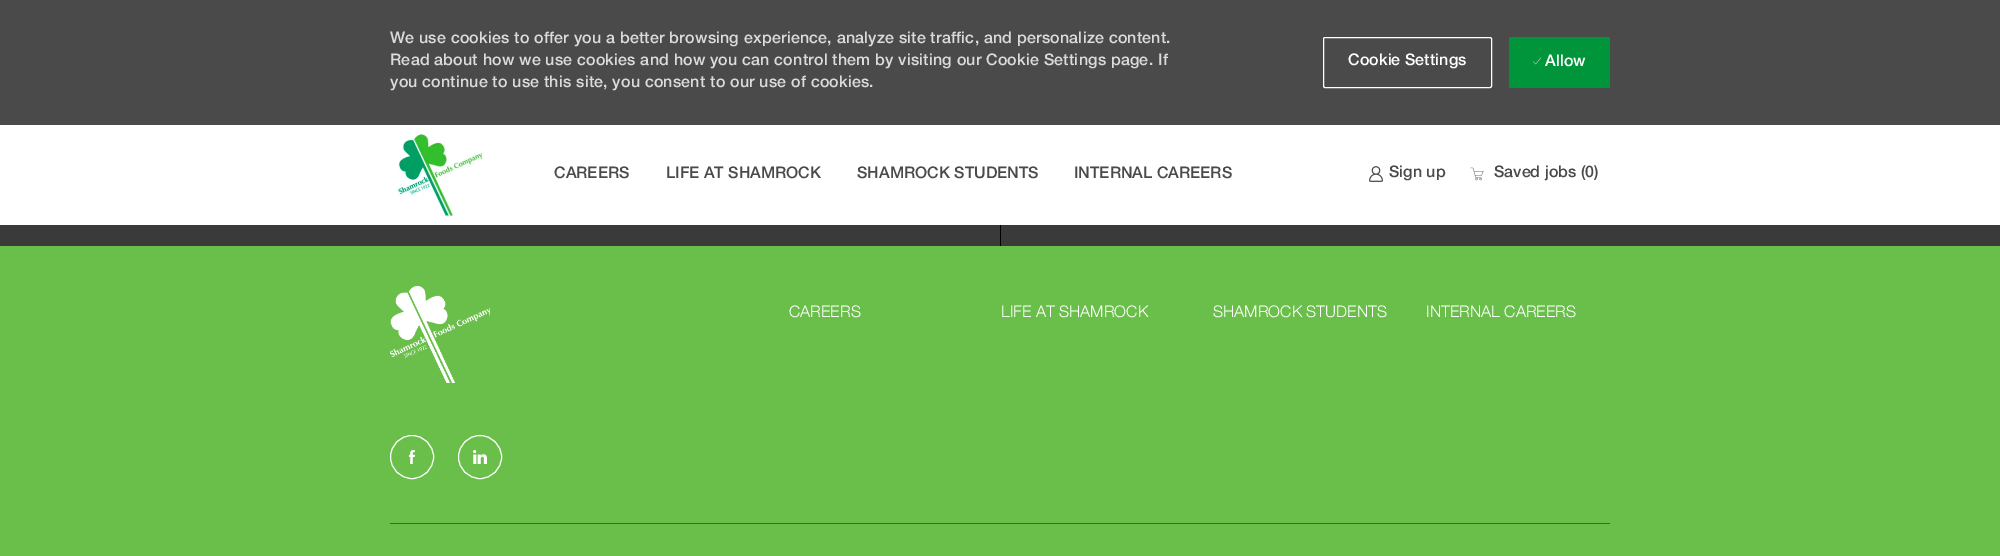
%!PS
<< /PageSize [2000 556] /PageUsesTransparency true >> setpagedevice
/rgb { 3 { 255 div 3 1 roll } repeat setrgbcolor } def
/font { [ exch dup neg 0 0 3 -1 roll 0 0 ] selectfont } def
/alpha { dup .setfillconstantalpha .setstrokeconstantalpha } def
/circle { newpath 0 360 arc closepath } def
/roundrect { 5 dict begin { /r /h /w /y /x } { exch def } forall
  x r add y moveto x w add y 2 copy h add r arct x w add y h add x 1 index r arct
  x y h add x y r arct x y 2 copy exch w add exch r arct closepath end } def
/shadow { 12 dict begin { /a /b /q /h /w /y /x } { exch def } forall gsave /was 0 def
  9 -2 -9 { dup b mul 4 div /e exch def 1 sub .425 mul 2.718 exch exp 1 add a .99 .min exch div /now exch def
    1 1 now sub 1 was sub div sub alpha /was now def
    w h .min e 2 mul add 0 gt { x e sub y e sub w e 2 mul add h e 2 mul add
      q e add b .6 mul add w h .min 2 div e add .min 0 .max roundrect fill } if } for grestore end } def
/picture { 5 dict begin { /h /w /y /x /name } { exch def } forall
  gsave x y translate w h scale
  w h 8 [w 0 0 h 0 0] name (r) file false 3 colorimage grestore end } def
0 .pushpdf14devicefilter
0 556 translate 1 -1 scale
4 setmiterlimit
106 191 75 rgb
0 0 2000 556 rectfill
74 74 74 rgb
0 0 2000 125 rectfill
255 255 255 rgb
1323.5 37.5 168 50 1.5 roundrect stroke
0 149 59 rgb
1509 37 101 51 2 roundrect fill
(img/1.rgb) 1533 57 8 8 picture
58 58 58 rgb
0 225 2000 21 rectfill
0 0 0 rgb
1000 225 1 21 rectfill
34 36 43 rgb
-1 128 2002 102 0 4 0.08 shadow
255 255 255 rgb
0 125 2000 100 rectfill
(img/2.rgb) 397 133 86 84 picture
(img/3.rgb) 1369 166 14 16 picture
(img/4.rgb) 1470 167 14 14 picture
(img/5.rgb) 390 286 100 97 picture
412 457 21.5 circle stroke
(img/6.rgb) 408 450 7 14 picture
480 457 21.5 circle stroke
(img/7.rgb) 473 450 14 14 picture
85 85 85 rgb
390 523 1220 1 rectfill
/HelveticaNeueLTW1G-Medium 16 font
219 219 219 rgb
390 43 moveto 0.2 0 (We use cookies to offer you a better browsing experience, analyze site traffic, and personalize content.) ashow
390 65 moveto 0.2 0 (Read about how we use cookies and how you can control them by visiting our Cookie Settings page. If) ashow
390 87 moveto 0.2 0 (you continue to use this site, you consent to our use of cookies.) ashow
255 255 255 rgb
1348 65 moveto 0.1 0 (Cookie Settings) ashow
1545 66 moveto 0.1 0 (Allow) ashow
74 74 74 rgb
[
  [(CAREERS) 554 178]
  [(LIFE AT SHAMROCK) 666 178]
  [(SHAMROCK STUDENTS) 857 178]
  [(INTERNAL CAREERS) 1074 178]
  [(Sign up) 1389 177]
  [(Saved jobs \(0\)) 1494 177]
] { aload pop moveto show } forall
/HelveticaNeueLTW1G-Light 16 font
255 255 255 rgb
[
  [(CAREERS) 789 317]
  [(LIFE AT SHAMROCK) 1001 317]
  [(SHAMROCK STUDENTS) 1213 317]
  [(INTERNAL CAREERS) 1426 317]
] { aload pop moveto show } forall
.poppdf14devicefilter showpage
